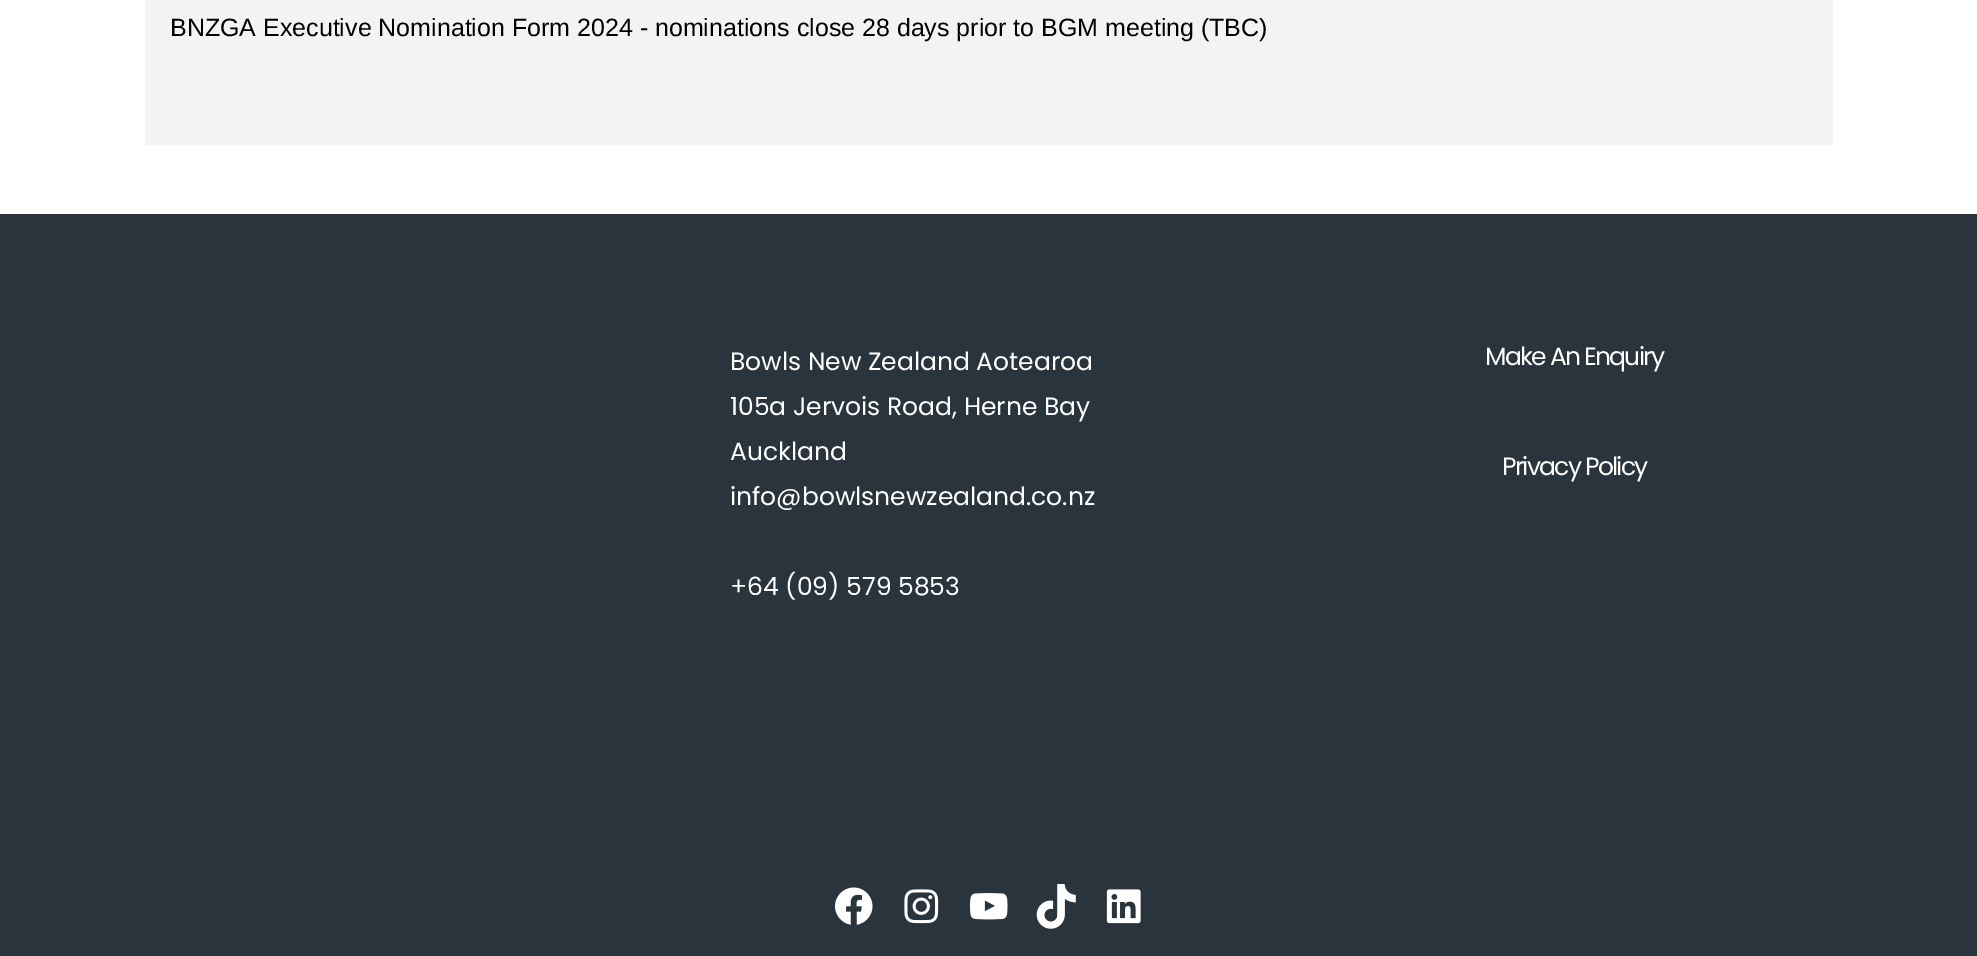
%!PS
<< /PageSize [1977 956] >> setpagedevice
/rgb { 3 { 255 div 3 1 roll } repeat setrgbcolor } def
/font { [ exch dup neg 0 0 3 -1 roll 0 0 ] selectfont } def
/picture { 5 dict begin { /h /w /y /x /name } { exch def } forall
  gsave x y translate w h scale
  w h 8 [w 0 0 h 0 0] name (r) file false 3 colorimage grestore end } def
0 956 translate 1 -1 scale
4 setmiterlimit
255 255 255 rgb
0 0 1977 956 rectfill
243 243 243 rgb
145 0 1688 145 rectfill
42 52 60 rgb
0 214 1977 742 rectfill
(img/1.rgb) 835 887 38 38 picture
(img/2.rgb) 904 889 35 35 picture
(img/3.rgb) 970 893 38 27 picture
(img/4.rgb) 1036 884 40 45 picture
(img/5.rgb) 1106 889 35 35 picture
/LiberationSans-Regular 25 font
0 0 0 rgb
170 36 moveto (BNZGA Executive Nomination Form 2024 - nominations close 28 days prior to BGM meeting \(TBC\)) show
/Poppins-Regular 25 font
255 255 255 rgb
[
  [(Bowls New Zealand Aotearoa) 730 370]
  [(105a Jervois Road, Herne Bay) 730 415]
  [(Auckland) 730 460]
  [(info@bowlsnewzealand.co.nz) 730 505]
  [(+64 \(09\) 579 5853) 730 595]
] { aload pop moveto show } forall
1485 365 moveto -1.75 0 (Make An Enquiry) ashow
1502 475 moveto -1.75 0 (Privacy Policy) ashow
showpage
